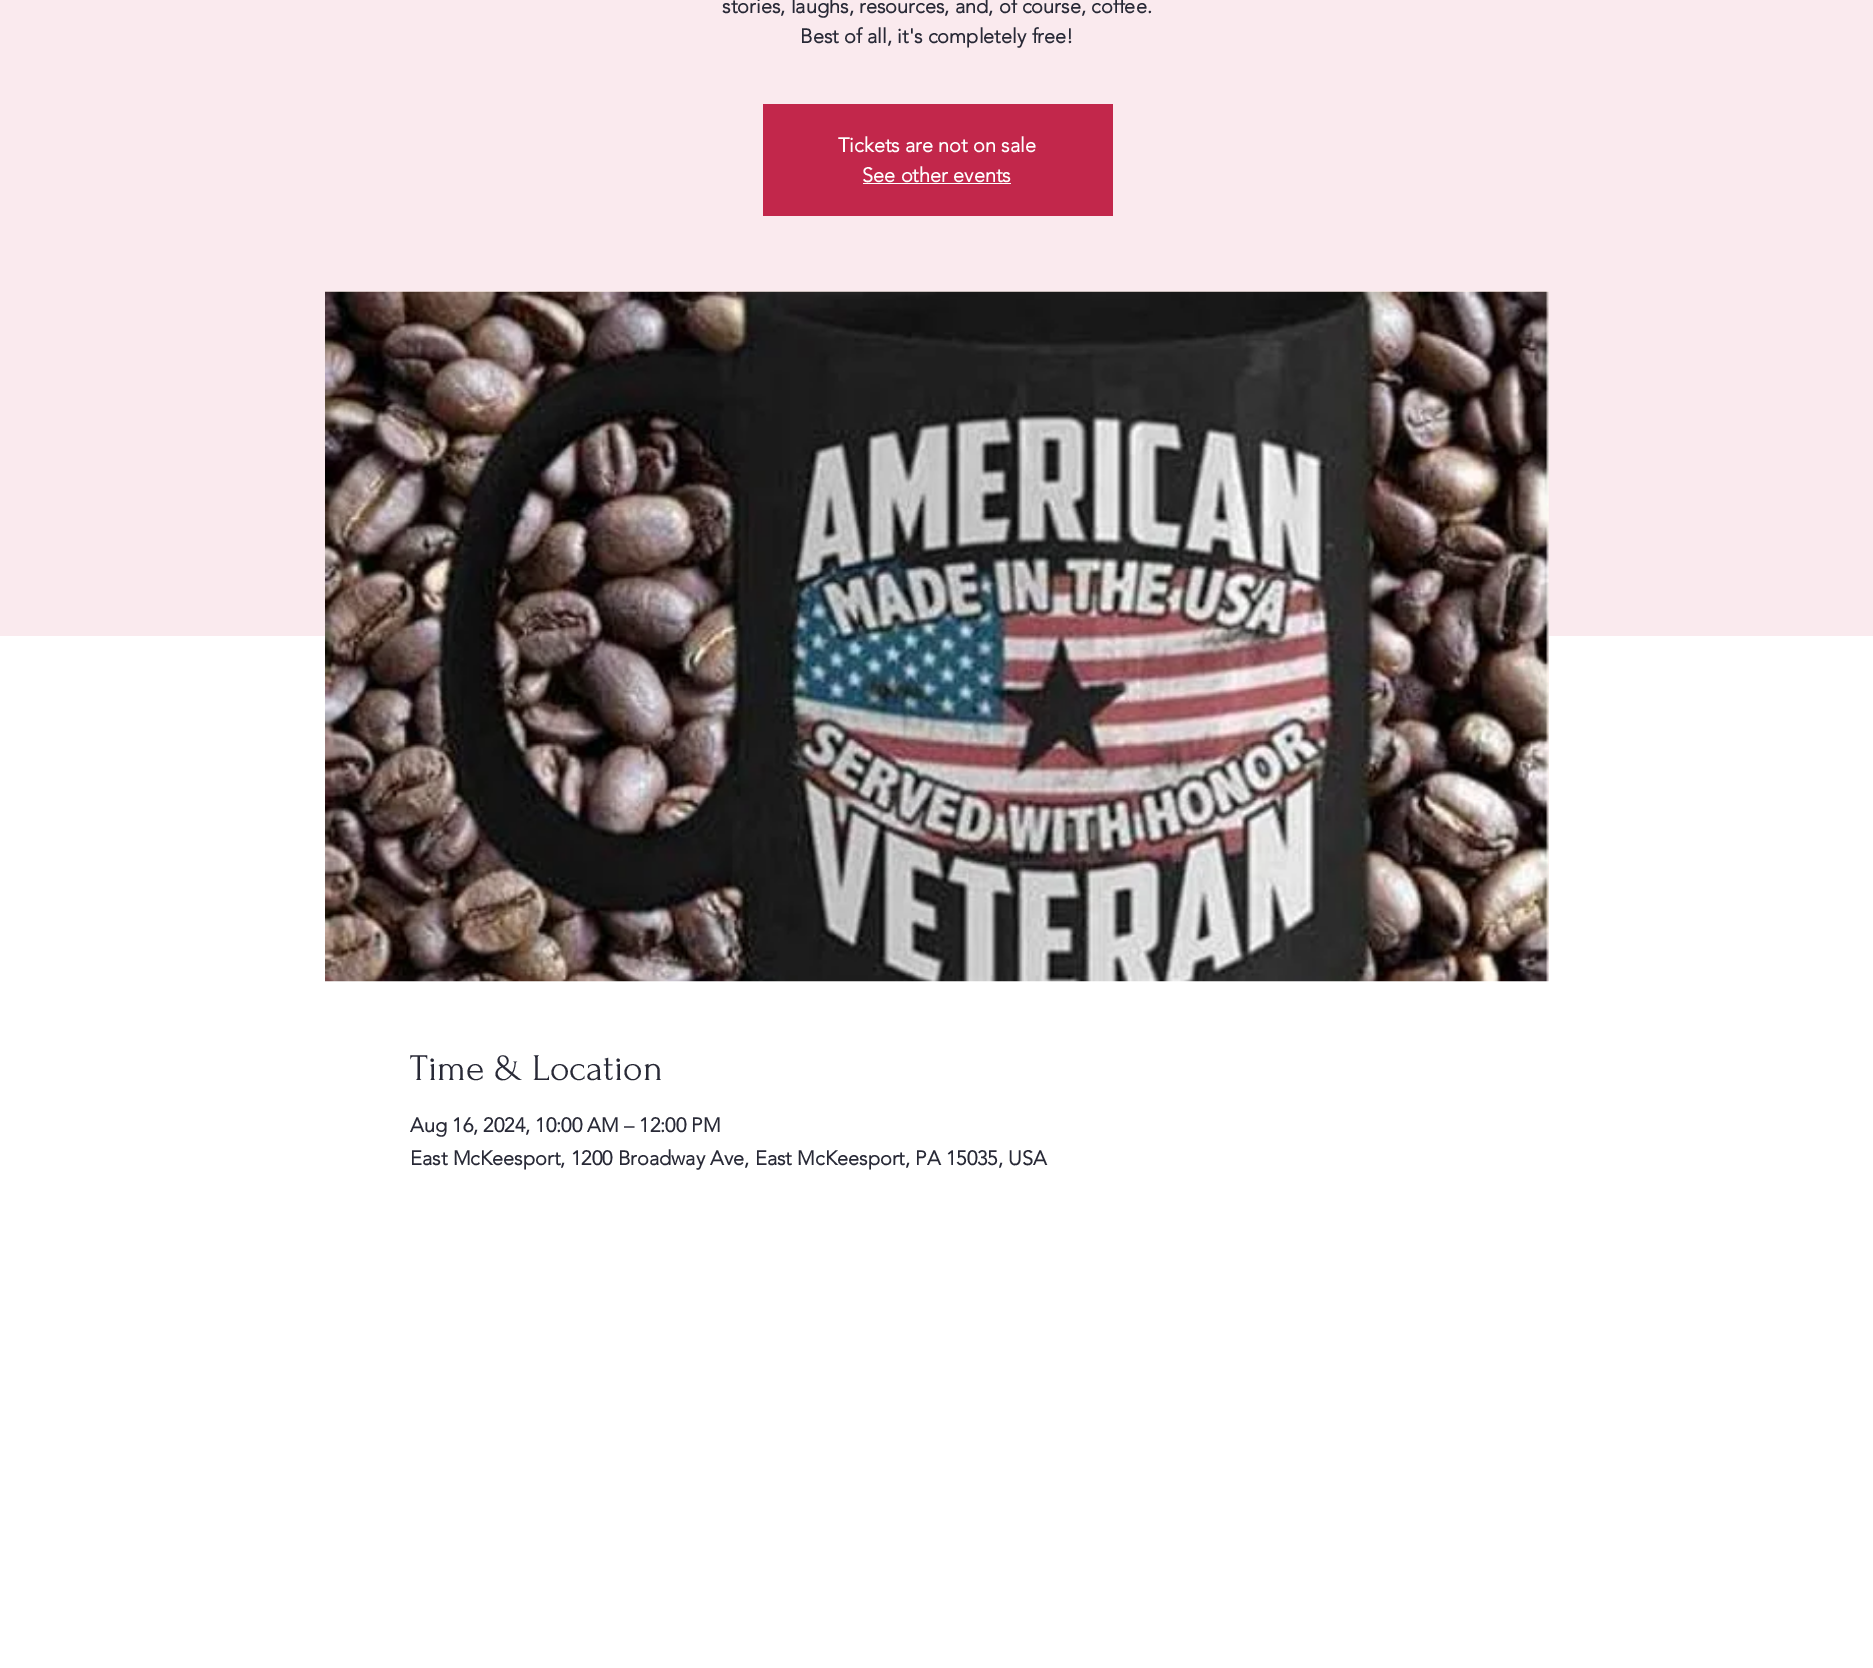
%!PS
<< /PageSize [1873 1668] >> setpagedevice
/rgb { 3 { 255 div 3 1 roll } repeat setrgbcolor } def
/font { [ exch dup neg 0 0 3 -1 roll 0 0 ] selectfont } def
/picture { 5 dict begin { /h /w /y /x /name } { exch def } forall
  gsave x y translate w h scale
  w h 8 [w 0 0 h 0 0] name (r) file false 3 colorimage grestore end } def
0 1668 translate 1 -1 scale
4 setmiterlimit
255 255 255 rgb
0 0 1873 1668 rectfill
[
  [0 0 1873 636 250 234 238]
  [763 104 350 112 194 39 75]
  [863 183 148 1 255 255 255]
  [325 291 1224 690 255 240 236]
] { aload pop rgb rectfill } forall
(img/1.rgb) 325 291 1224 691 picture
/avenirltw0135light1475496-Bold 20 font
40 41 54 rgb
722 13 moveto (stories, laughs, resources, and, of course, coffee.) show
800 43 moveto (Best of all, it's completely free!) show
255 255 255 rgb
838 152 moveto (Tickets are not on sale) show
862 182 moveto (See other events) show
/Forum-Regular 37.5 font
40 41 54 rgb
410 1080 moveto (Time & Location) show
/avenirltw0135light1475496-Bold 20 font
410 1132 moveto (Aug 16, 2024, 10:00 AM – 12:00 PM) show
410 1165 moveto (East McKeesport, 1200 Broadway Ave, East McKeesport, PA 15035, USA) show
showpage
